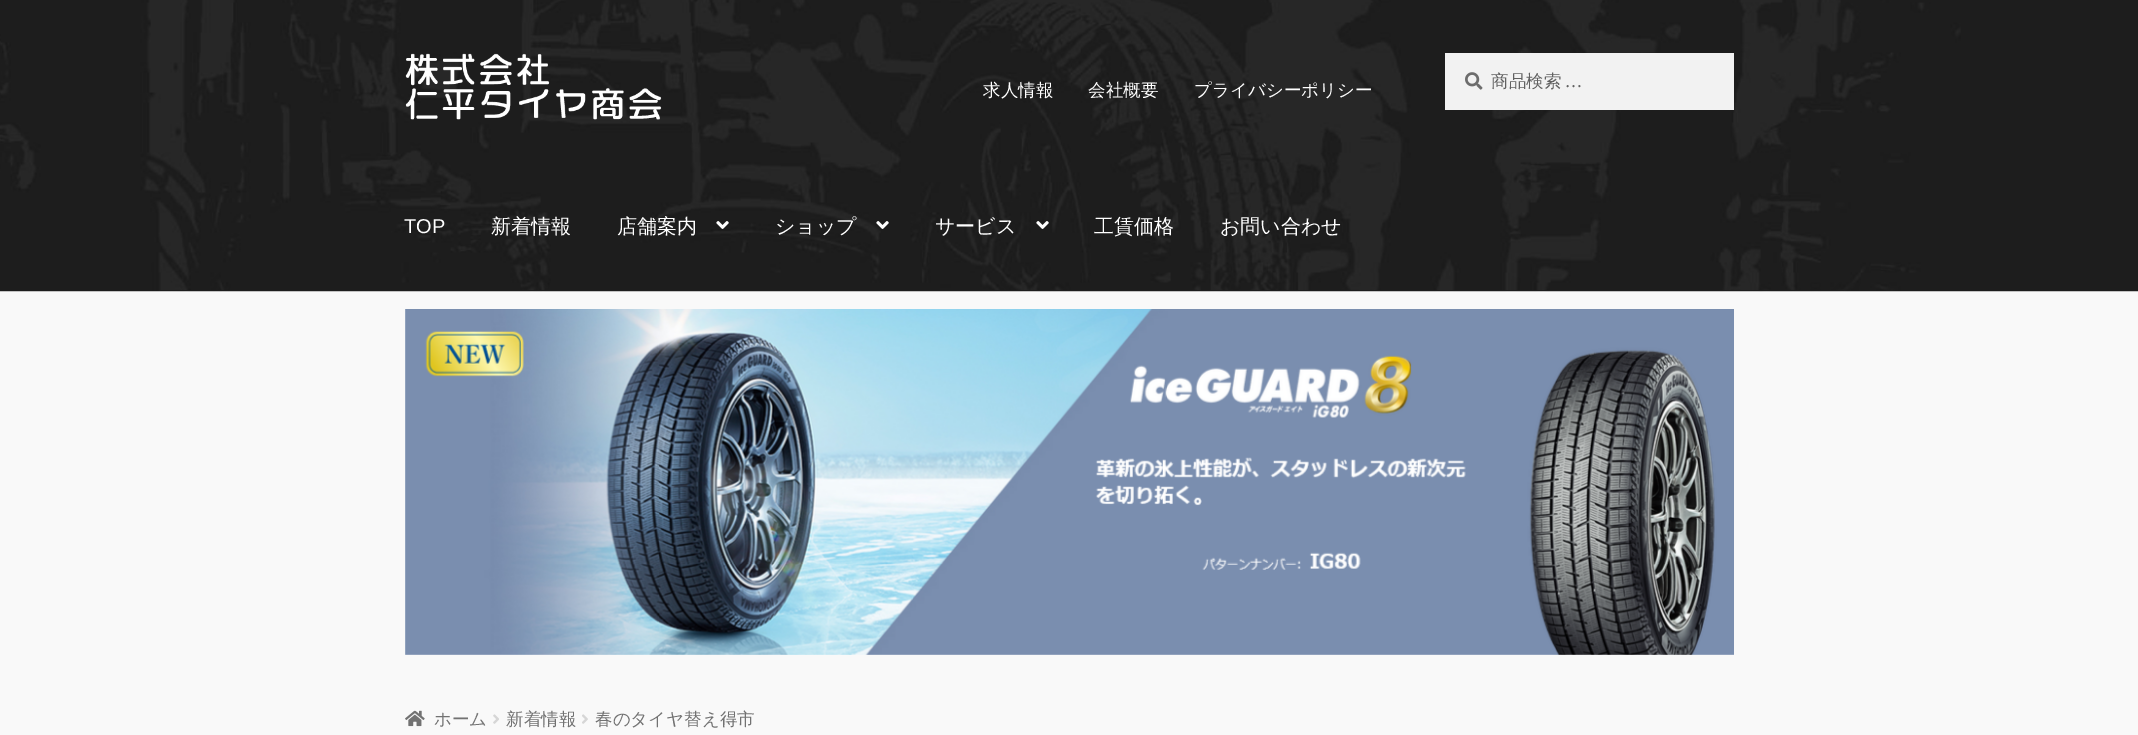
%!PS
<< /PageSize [2138 735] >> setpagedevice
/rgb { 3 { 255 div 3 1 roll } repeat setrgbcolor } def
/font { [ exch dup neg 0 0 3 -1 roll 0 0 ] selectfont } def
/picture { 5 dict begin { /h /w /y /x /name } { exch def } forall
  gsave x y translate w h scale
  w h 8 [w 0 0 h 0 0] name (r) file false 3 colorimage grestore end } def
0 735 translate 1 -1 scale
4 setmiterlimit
249 249 249 rgb
0 0 2138 735 rectfill
(img/1.rgb) 0 0 2138 292 picture
30 30 30 rgb
160 290 1684 1 rectfill
(img/2.rgb) 405 53 257 67 picture
242 242 242 rgb
1445 53 289 57 rectfill
(img/3.rgb) 1465 72 18 18 picture
(img/4.rgb) 716 221 13 8 picture
(img/5.rgb) 876 221 13 8 picture
(img/6.rgb) 1036 221 13 8 picture
(img/7.rgb) 405 309 1329 346 picture
(img/8.rgb) 405 710 20 17 picture
(img/9.rgb) 493 714 6 10 picture
(img/10.rgb) 582 714 6 10 picture
/WenQuanYiZenHei-Medium 17.5 font
255 255 255 rgb
[
  [(求人情報) 983 96]
  [(会社概要) 1088 96]
  [(プライバシーポリシー) 1194 96]
] { aload pop moveto show } forall
97 97 97 rgb
1491 87 moveto (商品検索) show
/SourceSansPro-Regular 17.5 font
1565 87 moveto (…) show
/LiberationSans-Regular 20 font
255 255 255 rgb
404 233 moveto (TOP) show
/WenQuanYiZenHei-Medium 20 font
[
  [(新着情報) 491 233]
  [(店舗案内) 617 233]
  [(ショップ) 775 233]
  [(サービス) 935 233]
  [(工賃価格) 1094 233]
  [(お問い合わせ) 1220 233]
] { aload pop moveto show } forall
/WenQuanYiZenHei-Medium 17.5 font
114 114 114 rgb
[
  [(ホーム) 434 725]
  [(新着情報) 506 725]
  [(春のタイヤ替え得市) 595 725]
] { aload pop moveto show } forall
showpage
